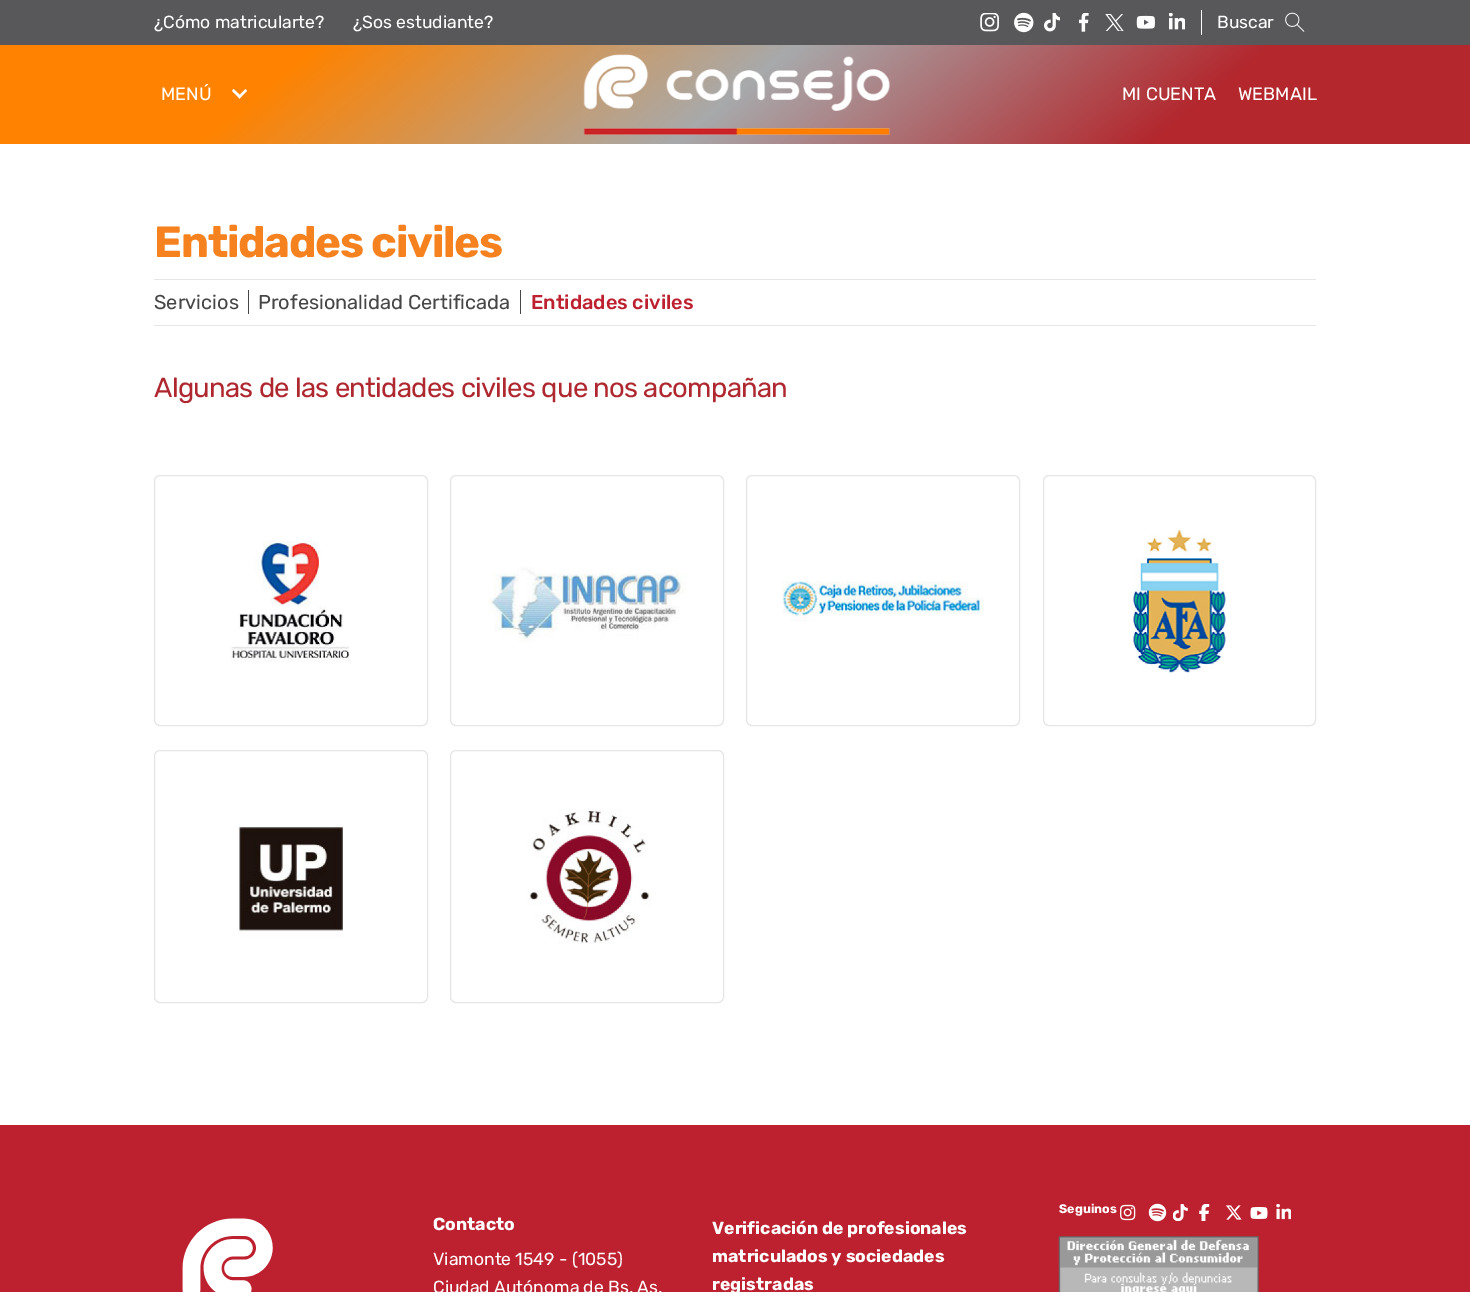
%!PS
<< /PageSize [1470 1292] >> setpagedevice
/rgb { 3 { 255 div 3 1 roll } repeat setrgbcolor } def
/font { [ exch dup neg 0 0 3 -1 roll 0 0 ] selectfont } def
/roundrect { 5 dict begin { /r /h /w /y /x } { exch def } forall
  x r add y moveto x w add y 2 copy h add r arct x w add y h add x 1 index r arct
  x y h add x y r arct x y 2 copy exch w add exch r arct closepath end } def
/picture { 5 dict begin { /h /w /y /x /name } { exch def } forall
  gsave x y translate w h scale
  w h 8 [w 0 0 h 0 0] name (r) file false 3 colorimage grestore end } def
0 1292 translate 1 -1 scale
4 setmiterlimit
255 255 255 rgb
0 0 1470 1292 rectfill
88 88 91 rgb
0 0 1470 45 rectfill
255 255 255 rgb
1201 10 1 25 rectfill
(img/1.rgb) 980 13 19 19 picture
(img/2.rgb) 1014 12 20 21 picture
(img/3.rgb) 1044 13 16 19 picture
(img/4.rgb) 1079 13 10 19 picture
(img/5.rgb) 1105 14 19 17 picture
(img/6.rgb) 1136 15 19 14 picture
(img/7.rgb) 1169 13 16 17 picture
(img/8.rgb) 1285 12 20 20 picture
gsave 0 45 moveto 1470 45 lineto 1470 144 lineto 0 144 lineto closepath clip newpath
<< /ShadingType 2 /ColorSpace /DeviceRGB /Coords [420 -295 1050 484] /Extend [true true] /Function << /FunctionType 3 /Domain [0 1] /Functions [<< /FunctionType 2 /Domain [0 1] /C0 [1 0.514 0] /C1 [1 0.514 0] /N 1 >> << /FunctionType 2 /Domain [0 1] /C0 [1 0.514 0] /C1 [0.655 0.663 0.671] /N 1 >> << /FunctionType 2 /Domain [0 1] /C0 [0.655 0.663 0.671] /C1 [0.702 0.153 0.176] /N 1 >> << /FunctionType 2 /Domain [0 1] /C0 [0.702 0.153 0.176] /C1 [0.702 0.153 0.176] /N 1 >>] /Bounds [0.2 0.5 0.8] /Encode [0 1 0 1 0 1 0 1] >> >> shfill grestore
245.5 89 moveto 247 91 lineto 239.5 98.5 lineto 238 96.5 lineto closepath fill
233.5 89 moveto 241.5 96.5 lineto 239.5 98.5 lineto 232 91 lineto closepath fill
(img/9.rgb) 583 54 307 81 picture
[
  [154 279 1162 1 230 230 230]
  [154 325 1162 1 230 230 230]
  [248 290 1 24 70 70 70]
  [520 290 1 24 70 70 70]
] { aload pop rgb rectfill } forall
230 230 230 rgb
154.5 475.5 273 250 5.5 roundrect stroke
(img/10.rgb) 230 541 121 121 picture
450.5 475.5 273 250 5.5 roundrect stroke
(img/11.rgb) 488 567 199 75 picture
746.5 475.5 273 250 5.5 roundrect stroke
(img/12.rgb) 782 581 202 41 picture
1043.5 475.5 272 250 5.5 roundrect stroke
(img/13.rgb) 1132 529 95 144 picture
154.5 750.5 273 252 5.5 roundrect stroke
(img/14.rgb) 238 825 105 112 picture
450.5 750.5 273 252 5.5 roundrect stroke
(img/15.rgb) 527 809 125 135 picture
189 32 46 rgb
0 1125 1470 167 rectfill
(img/16.rgb) 1120 1204 16 17 picture
(img/17.rgb) 1148 1203 19 19 picture
(img/18.rgb) 1173 1204 15 17 picture
(img/19.rgb) 1199 1204 11 17 picture
(img/20.rgb) 1226 1205 16 15 picture
(img/21.rgb) 1250 1207 18 12 picture
(img/22.rgb) 1276 1204 15 16 picture
(img/23.rgb) 1058 1236 201 56 picture
(img/24.rgb) 182 1218 91 74 picture
/Rubik-Regular 17.5 font
255 255 255 rgb
[
  [(¿Cómo matricularte?) 154 28]
  [(¿Sos estudiante?) 353 28]
  [(Buscar) 1217 28]
] { aload pop moveto show } forall
88 88 91 rgb
1274 19 1 2 rectfill
/Rubik-Regular 18 font
255 255 255 rgb
[
  [(MENÚ) 161 100]
  [(MI CUENTA) 1122 100]
  [(WEBMAIL) 1238 100]
] { aload pop moveto show } forall
/Rubik-Bold 43.75 font
245 130 31 rgb
154 257 moveto -1.25 0 (Entidades civiles) ashow
/Rubik-Regular 20 font
70 70 70 rgb
154 309 moveto (Servicios) show
258 309 moveto (Profesionalidad Certificada) show
/Rubik-Medium 20 font
189 32 46 rgb
531 309 moveto (Entidades civiles) show
/Rubik-Regular 27.5 font
175 39 47 rgb
154 397 moveto -0.75 0 (Algunas de las entidades civiles que nos acompañan) ashow
/Rubik-Bold 12.5 font
255 255 255 rgb
1059 1213 moveto (Seguinos) show
/Rubik-Bold 17.5 font
433 1230 moveto (Contacto) show
/Rubik-Regular 17.5 font
433 1265 moveto (Viamonte 1549 - \(1055\)) show
433 1293 moveto (Ciudad Autónoma de Bs. As.) show
/Rubik-Bold 17.5 font
[
  [(Verificación de profesionales) 712 1234]
  [(matriculados y sociedades) 712 1262]
  [(registradas) 712 1290]
] { aload pop moveto show } forall
showpage
